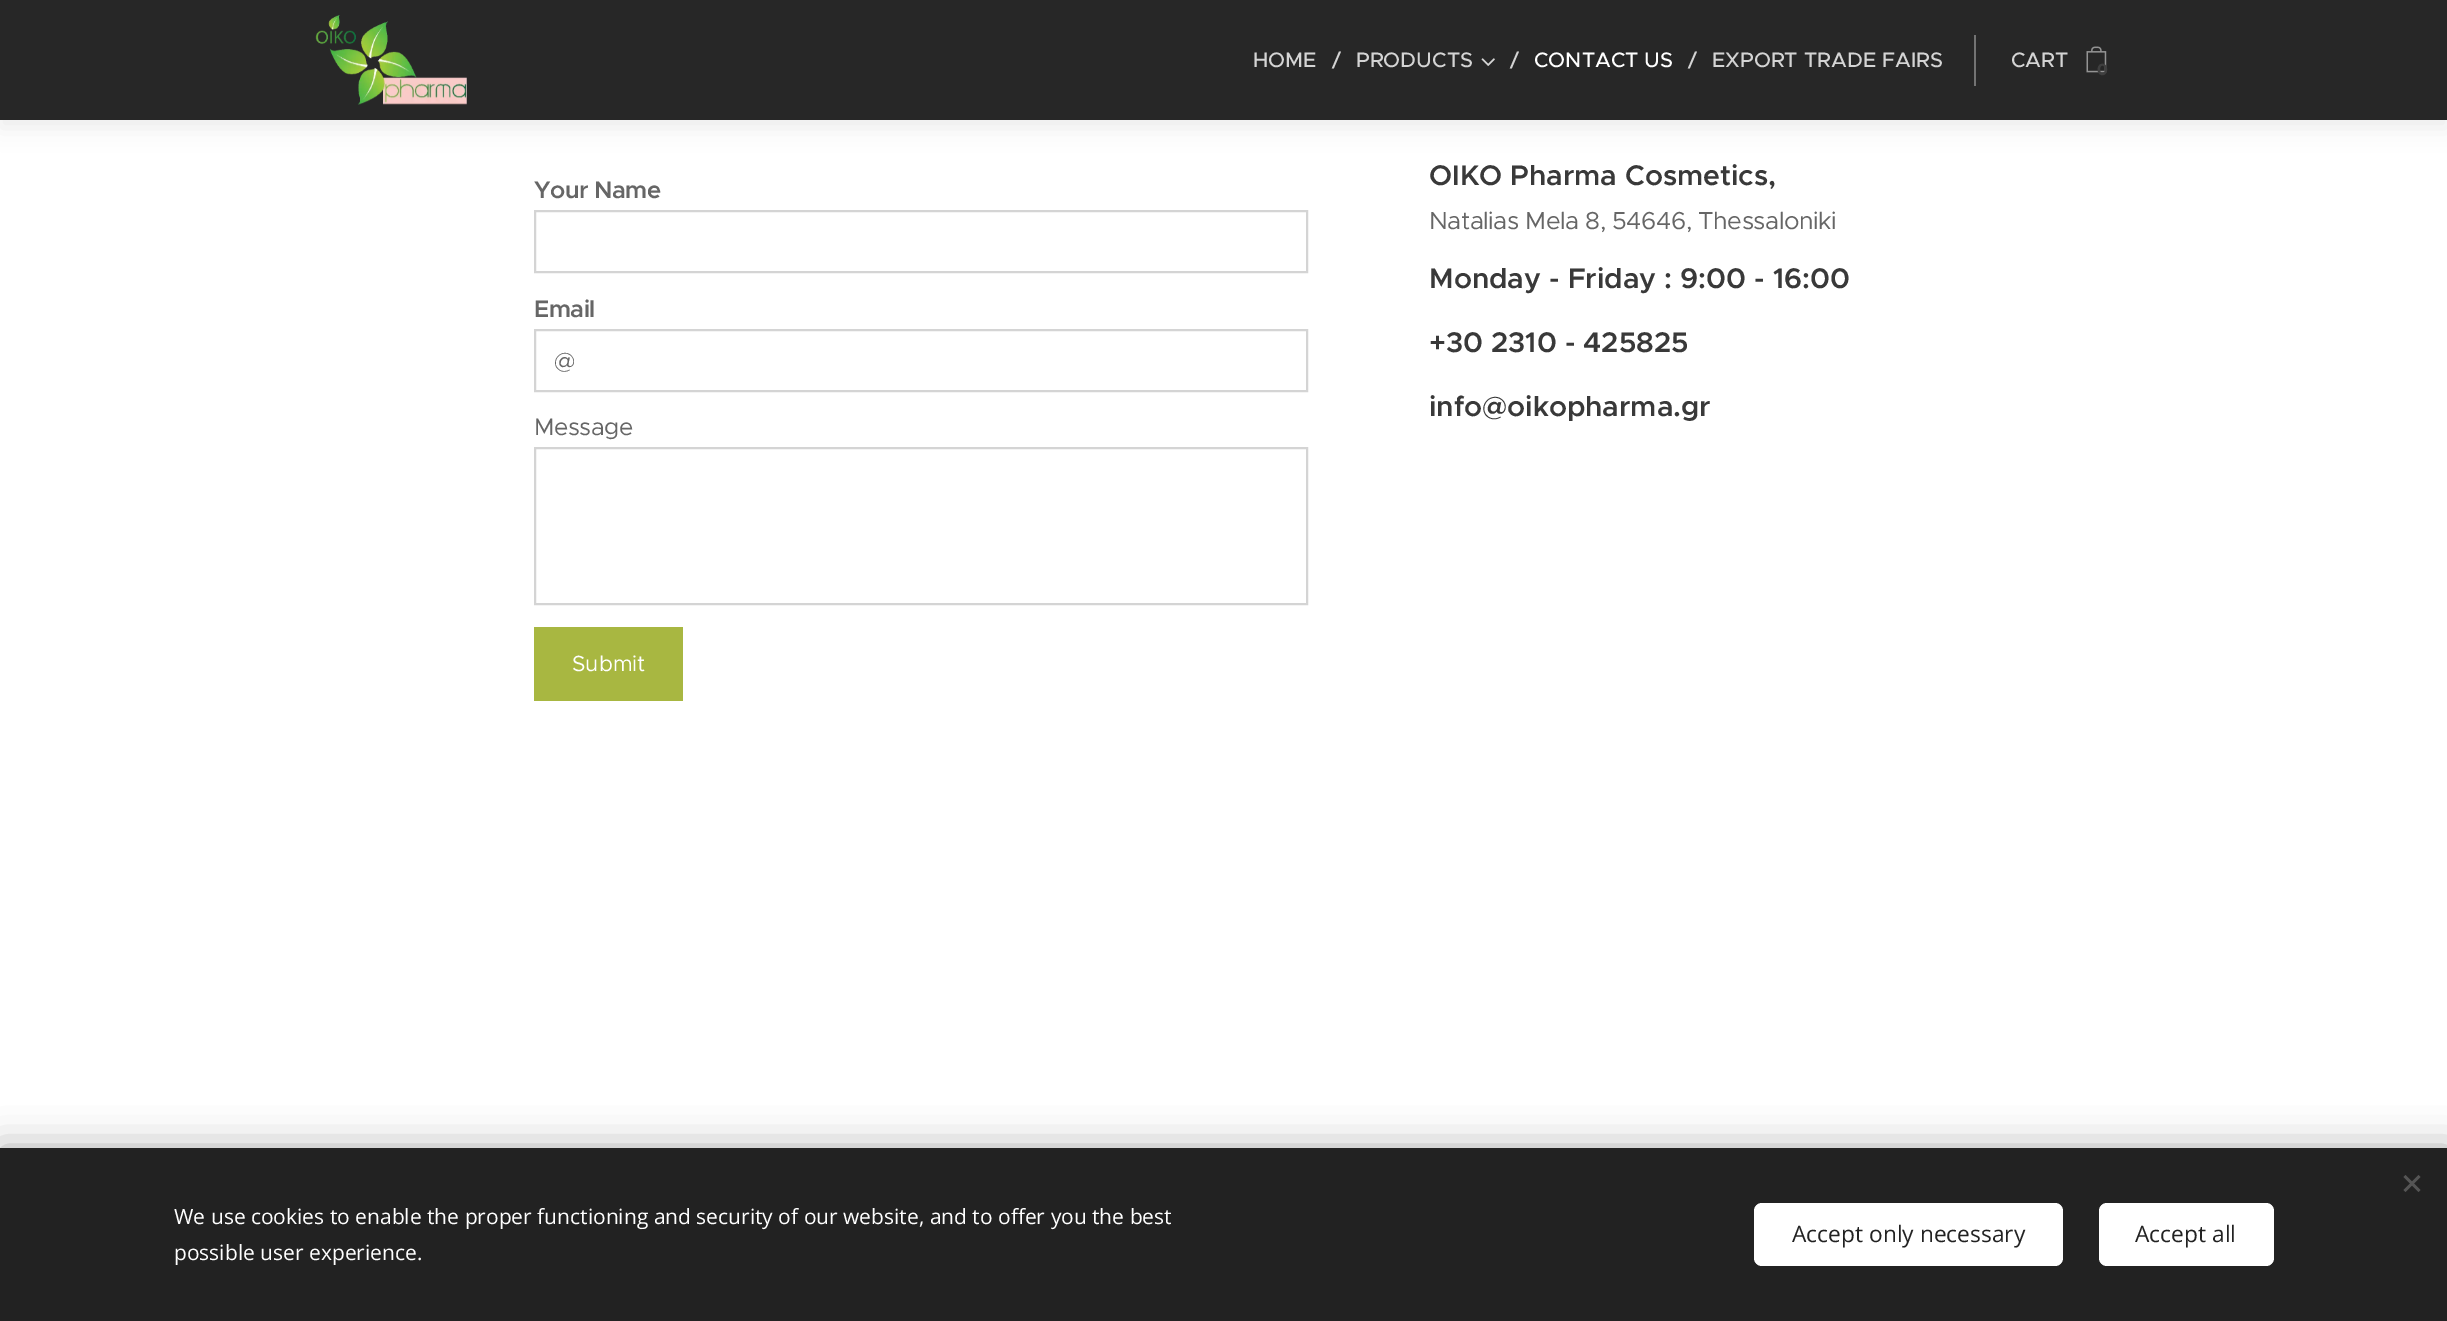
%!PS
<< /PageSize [2447 1321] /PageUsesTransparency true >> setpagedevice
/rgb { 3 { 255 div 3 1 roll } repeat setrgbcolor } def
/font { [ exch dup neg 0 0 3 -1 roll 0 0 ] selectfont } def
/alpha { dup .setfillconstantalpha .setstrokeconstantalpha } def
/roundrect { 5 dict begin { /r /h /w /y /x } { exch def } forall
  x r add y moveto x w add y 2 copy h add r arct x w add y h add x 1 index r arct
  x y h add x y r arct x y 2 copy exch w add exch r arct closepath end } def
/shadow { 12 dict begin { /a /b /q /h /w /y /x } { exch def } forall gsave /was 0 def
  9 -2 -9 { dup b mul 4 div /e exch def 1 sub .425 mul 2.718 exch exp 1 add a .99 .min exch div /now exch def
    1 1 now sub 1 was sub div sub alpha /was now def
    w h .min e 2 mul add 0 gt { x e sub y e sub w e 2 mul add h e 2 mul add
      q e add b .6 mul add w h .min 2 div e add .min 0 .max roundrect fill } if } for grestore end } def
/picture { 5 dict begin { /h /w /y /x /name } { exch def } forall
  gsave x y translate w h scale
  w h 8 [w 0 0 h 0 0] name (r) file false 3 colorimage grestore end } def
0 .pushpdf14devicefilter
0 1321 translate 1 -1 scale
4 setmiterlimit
255 255 255 rgb
0 0 2447 1321 rectfill
0 0 0 rgb
0 8 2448 120 0 11 0.07 shadow
39 39 39 rgb
0 0 2447 120 rectfill
(img/1.rgb) 315 15 152 90 picture
(img/2.rgb) 1481 58 14 8 picture
115 115 115 rgb
1974 35 2 51 rectfill
(img/3.rgb) 2086 46 21 27 picture
212 212 212 rgb
2 setlinewidth
535 211 772 61 rectstroke
535 330 772 61 rectstroke
535 448 772 156 rectstroke
168 183 65 rgb
534 627 149 74 rectfill
0 0 0 rgb
0 1148 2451 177 0 19 0.33 shadow
34 34 34 rgb
0 1148 2447 173 rectfill
85 85 85 rgb
2403.5 1190 moveto 2418.5 1175 lineto 2420.5 1177 lineto 2405.5 1192 lineto closepath fill
2405.5 1175 moveto 2420.5 1190 lineto 2418.5 1192 lineto 2403.5 1177 lineto closepath fill
255 255 255 rgb
1754 1203 309 63 8 roundrect fill
2099 1203 175 63 8 roundrect fill
/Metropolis-Medium 21 font
212 212 212 rgb
[
  [(HOME) 1253 67]
  [(/) 1332 67]
  [(PRODUCTS) 1356 67]
  [(/) 1510 67]
] { aload pop moveto show } forall
255 255 255 rgb
1534 67 moveto (CONTACT US) show
212 212 212 rgb
[
  [(/) 1688 67]
  [(EXPORT TRADE FAIRS) 1712 67]
  [(CART) 2011 67]
] { aload pop moveto show } forall
/Montserrat-Bold 16 font
63 63 63 rgb
2097 75 moveto (0) show
/Metropolis-SemiBold 24 font
102 102 102 rgb
534 198 moveto -0.5 0 (Your Name) ashow
534 317 moveto -0.5 0 (Email) ashow
/Metropolis-Regular 24 font
554 369 moveto (@) show
534 435 moveto -0.5 0 (Message) ashow
/Metropolis-Regular 22 font
255 255 255 rgb
572 671 moveto (Submit) show
/Metropolis-SemiBold 28.5 font
57 57 57 rgb
1429 185 moveto (OIKO Pharma Cosmetics,) show
/Metropolis-Regular 24.6 font
102 102 102 rgb
1429 229 moveto -0.5 0 (Natalias Mela 8, 54646, Thessaloniki) ashow
/Metropolis-SemiBold 28.5 font
57 57 57 rgb
[
  [(Monday - Friday : 9:00 - 16:00) 1429 288]
  [(+30 2310 - 425825) 1429 352]
  [(info@oikopharma.gr) 1429 416]
] { aload pop moveto show } forall
/OpenSans-Regular 21 font
255 255 255 rgb
174 1224 moveto (We use cookies to enable the proper functioning and security of our website, and to offer you the best) show
174 1260 moveto (possible user experience.) show
/OpenSans-Regular 22.75 font
34 34 34 rgb
1792 1242 moveto (Accept only necessary) show
2135 1242 moveto (Accept all) show
.poppdf14devicefilter showpage
